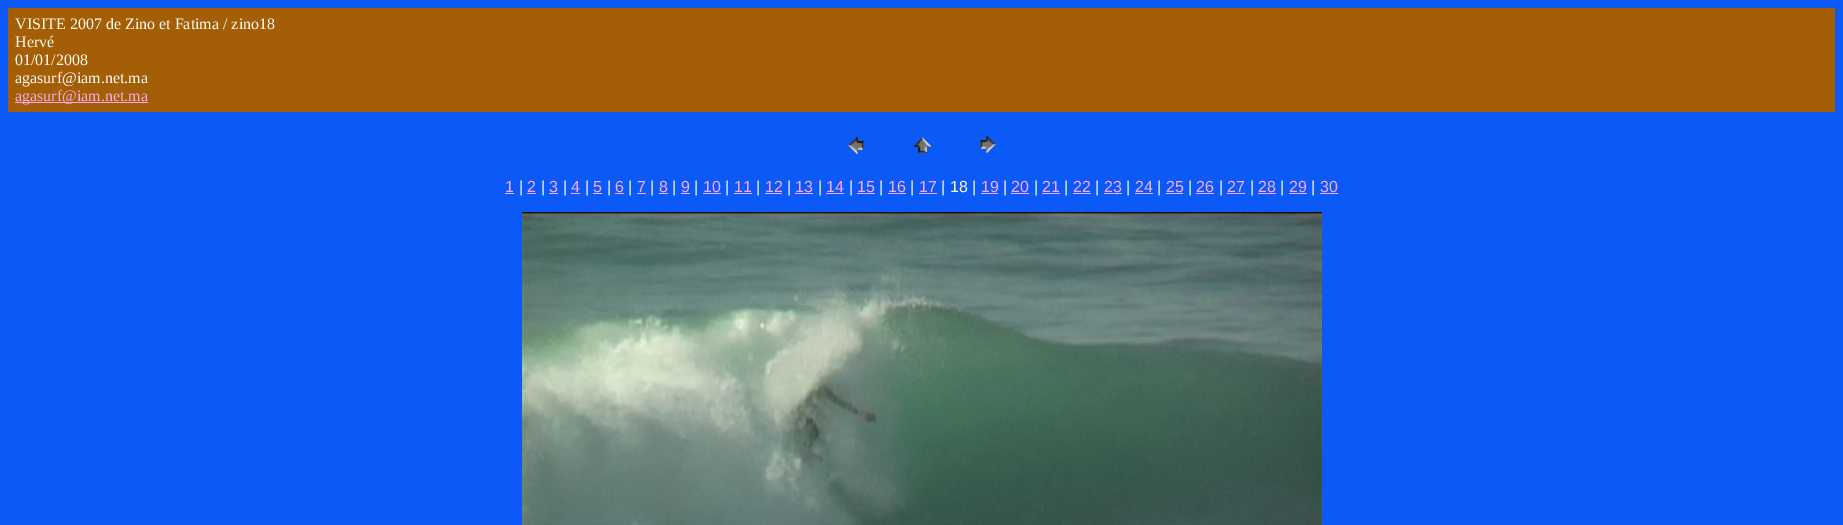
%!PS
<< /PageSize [1843 525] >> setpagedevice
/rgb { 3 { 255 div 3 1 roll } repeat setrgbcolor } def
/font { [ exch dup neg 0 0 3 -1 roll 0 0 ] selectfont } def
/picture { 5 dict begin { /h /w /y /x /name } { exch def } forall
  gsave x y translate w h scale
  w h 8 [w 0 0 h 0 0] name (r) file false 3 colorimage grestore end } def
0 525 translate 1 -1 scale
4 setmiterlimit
11 90 248 rgb
0 0 1843 525 rectfill
164 95 6 rgb
8 8 1827 104 rectfill
247 168 240 rgb
15 102 133 1 rectfill
(img/1.rgb) 848 137 16 17 picture
(img/2.rgb) 914 137 17 16 picture
(img/3.rgb) 980 136 16 17 picture
[
  [505 193 9 1 247 168 240]
  [527 193 9 1 247 168 240]
  [549 193 9 1 247 168 240]
  [571 193 9 1 247 168 240]
  [593 193 9 1 247 168 240]
  [615 193 9 1 247 168 240]
  [637 193 9 1 247 168 240]
  [659 193 9 1 247 168 240]
  [681 193 9 1 247 168 240]
  [703 193 18 1 247 168 240]
  [734 193 18 1 247 168 240]
  [765 193 17 1 247 168 240]
  [795 193 18 1 247 168 240]
  [826 193 18 1 247 168 240]
  [857 193 18 1 247 168 240]
  [888 193 18 1 247 168 240]
  [919 193 18 1 247 168 240]
  [981 193 17 1 247 168 240]
  [1011 193 18 1 247 168 240]
  [1042 193 18 1 247 168 240]
  [1073 193 18 1 247 168 240]
  [1104 193 18 1 247 168 240]
  [1135 193 18 1 247 168 240]
  [1166 193 17 1 247 168 240]
  [1196 193 18 1 247 168 240]
  [1227 193 18 1 247 168 240]
  [1258 193 18 1 247 168 240]
  [1289 193 18 1 247 168 240]
  [1320 193 18 1 247 168 240]
] { aload pop rgb rectfill } forall
(img/4.rgb) 522 212 800 313 picture
/LiberationSerif-Regular 16 font
249 249 244 rgb
[
  [(VISITE 2007 de Zino et Fatima / zino18) 15 29]
  [(Hervé) 15 47]
  [(01/01/2008) 15 65]
  [(agasurf@iam.net.ma) 15 83]
] { aload pop moveto show } forall
247 168 240 rgb
15 101 moveto (agasurf@iam.net.ma) show
/LiberationSans-Regular 16 font
505 192 moveto (1) show
249 249 244 rgb
519 192 moveto (|) show
247 168 240 rgb
527 192 moveto (2) show
249 249 244 rgb
541 192 moveto (|) show
247 168 240 rgb
549 192 moveto (3) show
249 249 244 rgb
563 192 moveto (|) show
247 168 240 rgb
571 192 moveto (4) show
249 249 244 rgb
585 192 moveto (|) show
247 168 240 rgb
593 192 moveto (5) show
249 249 244 rgb
607 192 moveto (|) show
247 168 240 rgb
615 192 moveto (6) show
249 249 244 rgb
628 192 moveto (|) show
247 168 240 rgb
637 192 moveto (7) show
249 249 244 rgb
650 192 moveto (|) show
247 168 240 rgb
659 192 moveto (8) show
249 249 244 rgb
672 192 moveto (|) show
247 168 240 rgb
681 192 moveto (9) show
249 249 244 rgb
694 192 moveto (|) show
247 168 240 rgb
703 192 moveto (10) show
249 249 244 rgb
725 192 moveto (|) show
247 168 240 rgb
734 192 moveto (11) show
249 249 244 rgb
756 192 moveto (|) show
247 168 240 rgb
765 192 moveto (12) show
249 249 244 rgb
787 192 moveto (|) show
247 168 240 rgb
795 192 moveto (13) show
249 249 244 rgb
818 192 moveto (|) show
247 168 240 rgb
826 192 moveto (14) show
249 249 244 rgb
849 192 moveto (|) show
247 168 240 rgb
857 192 moveto (15) show
249 249 244 rgb
879 192 moveto (|) show
247 168 240 rgb
888 192 moveto (16) show
249 249 244 rgb
910 192 moveto (|) show
247 168 240 rgb
919 192 moveto (17) show
249 249 244 rgb
941 192 moveto (| 18 |) show
247 168 240 rgb
981 192 moveto (19) show
249 249 244 rgb
1003 192 moveto (|) show
247 168 240 rgb
1011 192 moveto (20) show
249 249 244 rgb
1034 192 moveto (|) show
247 168 240 rgb
1042 192 moveto (21) show
249 249 244 rgb
1064 192 moveto (|) show
247 168 240 rgb
1073 192 moveto (22) show
249 249 244 rgb
1095 192 moveto (|) show
247 168 240 rgb
1104 192 moveto (23) show
249 249 244 rgb
1126 192 moveto (|) show
247 168 240 rgb
1135 192 moveto (24) show
249 249 244 rgb
1157 192 moveto (|) show
247 168 240 rgb
1166 192 moveto (25) show
249 249 244 rgb
1188 192 moveto (|) show
247 168 240 rgb
1196 192 moveto (26) show
249 249 244 rgb
1219 192 moveto (|) show
247 168 240 rgb
1227 192 moveto (27) show
249 249 244 rgb
1250 192 moveto (|) show
247 168 240 rgb
1258 192 moveto (28) show
249 249 244 rgb
1280 192 moveto (|) show
247 168 240 rgb
1289 192 moveto (29) show
249 249 244 rgb
1311 192 moveto (|) show
247 168 240 rgb
1320 192 moveto (30) show
showpage
